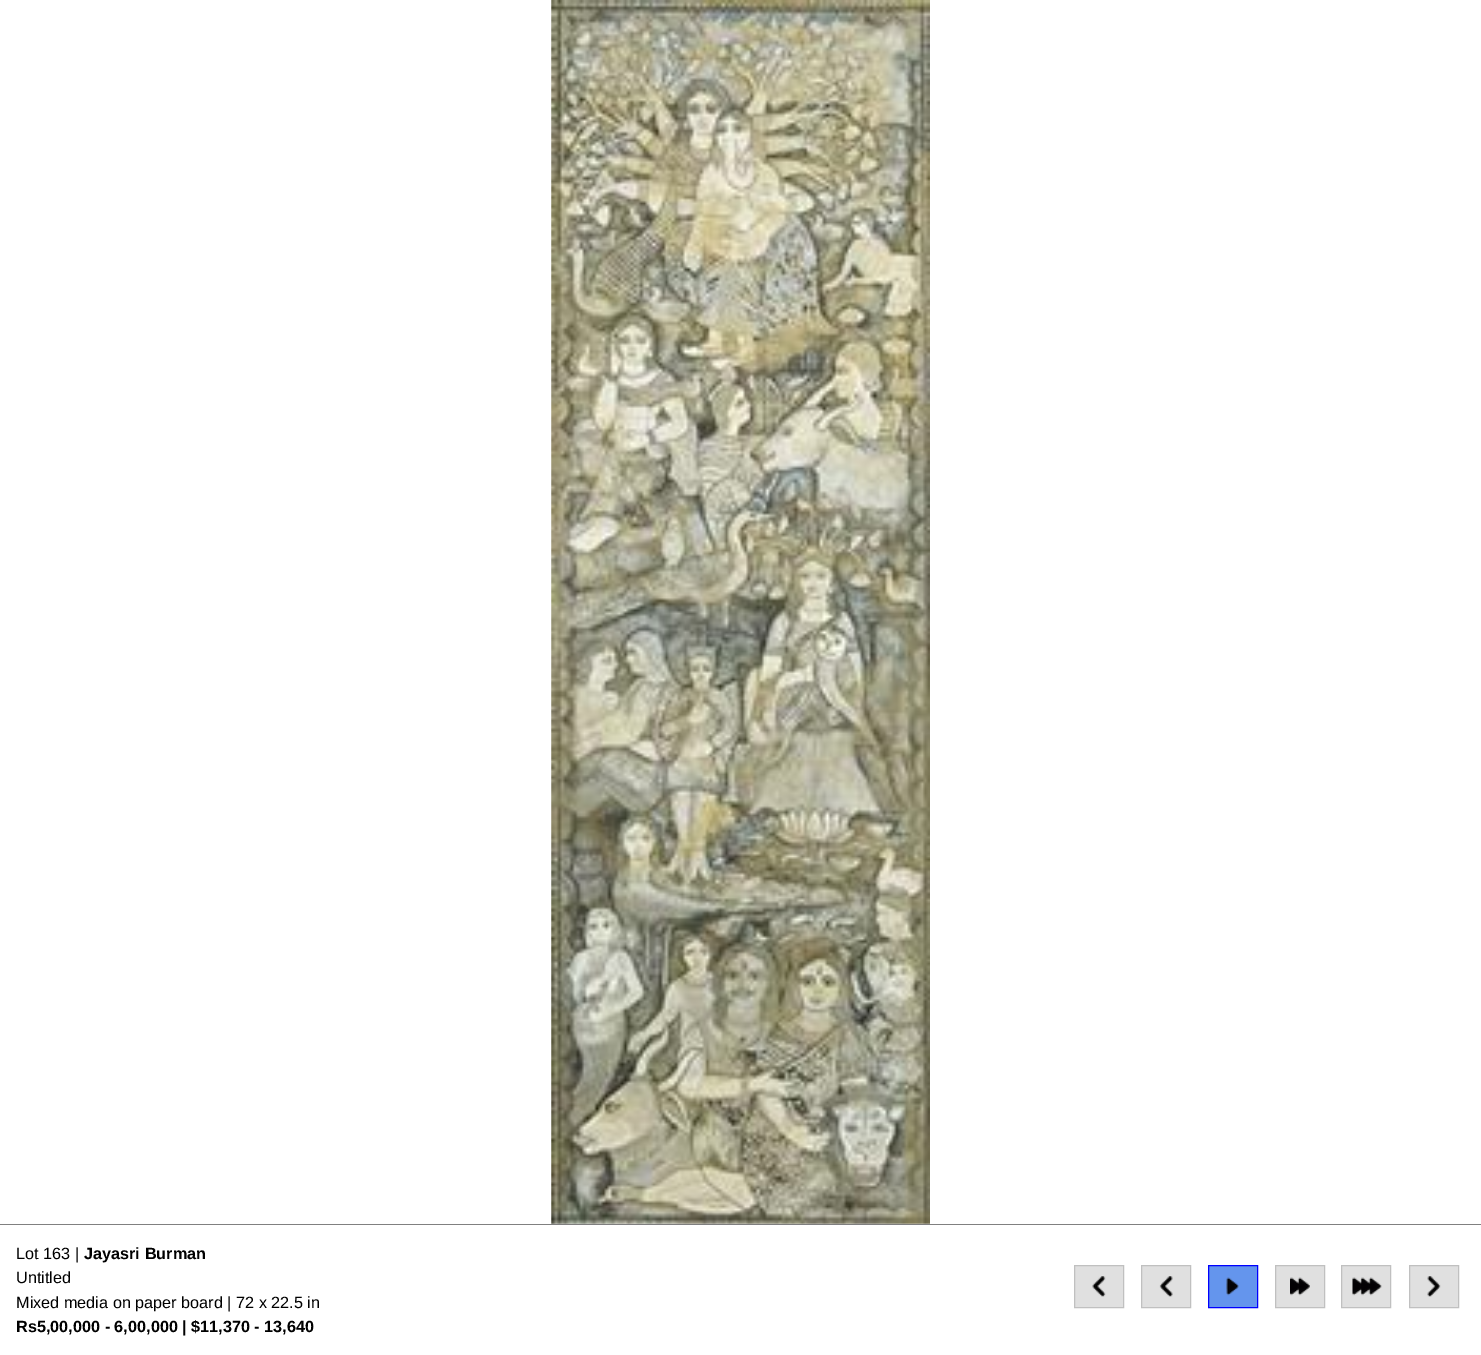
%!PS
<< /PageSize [1481 1355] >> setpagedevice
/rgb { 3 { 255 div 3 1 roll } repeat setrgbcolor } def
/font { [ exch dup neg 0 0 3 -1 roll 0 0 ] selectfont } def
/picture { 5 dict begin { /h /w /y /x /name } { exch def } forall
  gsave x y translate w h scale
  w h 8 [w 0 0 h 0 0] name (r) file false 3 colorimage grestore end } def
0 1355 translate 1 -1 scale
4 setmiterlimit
255 255 255 rgb
0 0 1481 1355 rectfill
(img/1.rgb) 551 0 379 1224 picture
128 128 128 rgb
0 1224 1481 1 rectfill
224 224 224 rgb
1075 1266 48 41 rectfill
(img/2.rgb) 1092 1276 14 21 picture
192 192 192 rgb
1074.5 1265.5 49 42 rectstroke
224 224 224 rgb
1142 1266 48 41 rectfill
(img/3.rgb) 1159 1276 14 21 picture
192 192 192 rgb
1141.5 1265.5 49 42 rectstroke
100 149 237 rgb
1209 1266 48 41 rectfill
(img/4.rgb) 1226 1277 13 19 picture
0 0 255 rgb
1208.5 1265.5 49 42 rectstroke
224 224 224 rgb
1276 1266 48 41 rectfill
(img/5.rgb) 1290 1277 20 19 picture
192 192 192 rgb
1275.5 1265.5 49 42 rectstroke
224 224 224 rgb
1342 1266 48 41 rectfill
(img/6.rgb) 1352 1277 30 19 picture
192 192 192 rgb
1341.5 1265.5 49 42 rectstroke
224 224 224 rgb
1410 1266 48 41 rectfill
(img/7.rgb) 1427 1276 14 21 picture
192 192 192 rgb
1409.5 1265.5 49 42 rectstroke
/LiberationSans-Regular 16.25 font
0 0 0 rgb
16 1259 moveto (Lot 163 |) show
/LiberationSans-Bold 16.25 font
84 1259 moveto (Jayasri Burman) show
/LiberationSans-Regular 16.25 font
16 1283 moveto (Untitled) show
16 1308 moveto (Mixed media on paper board | 72 x 22.5 in) show
/LiberationSans-Bold 16.25 font
16 1332 moveto (Rs5,00,000 - 6,00,000 | $11,370 - 13,640) show
showpage
